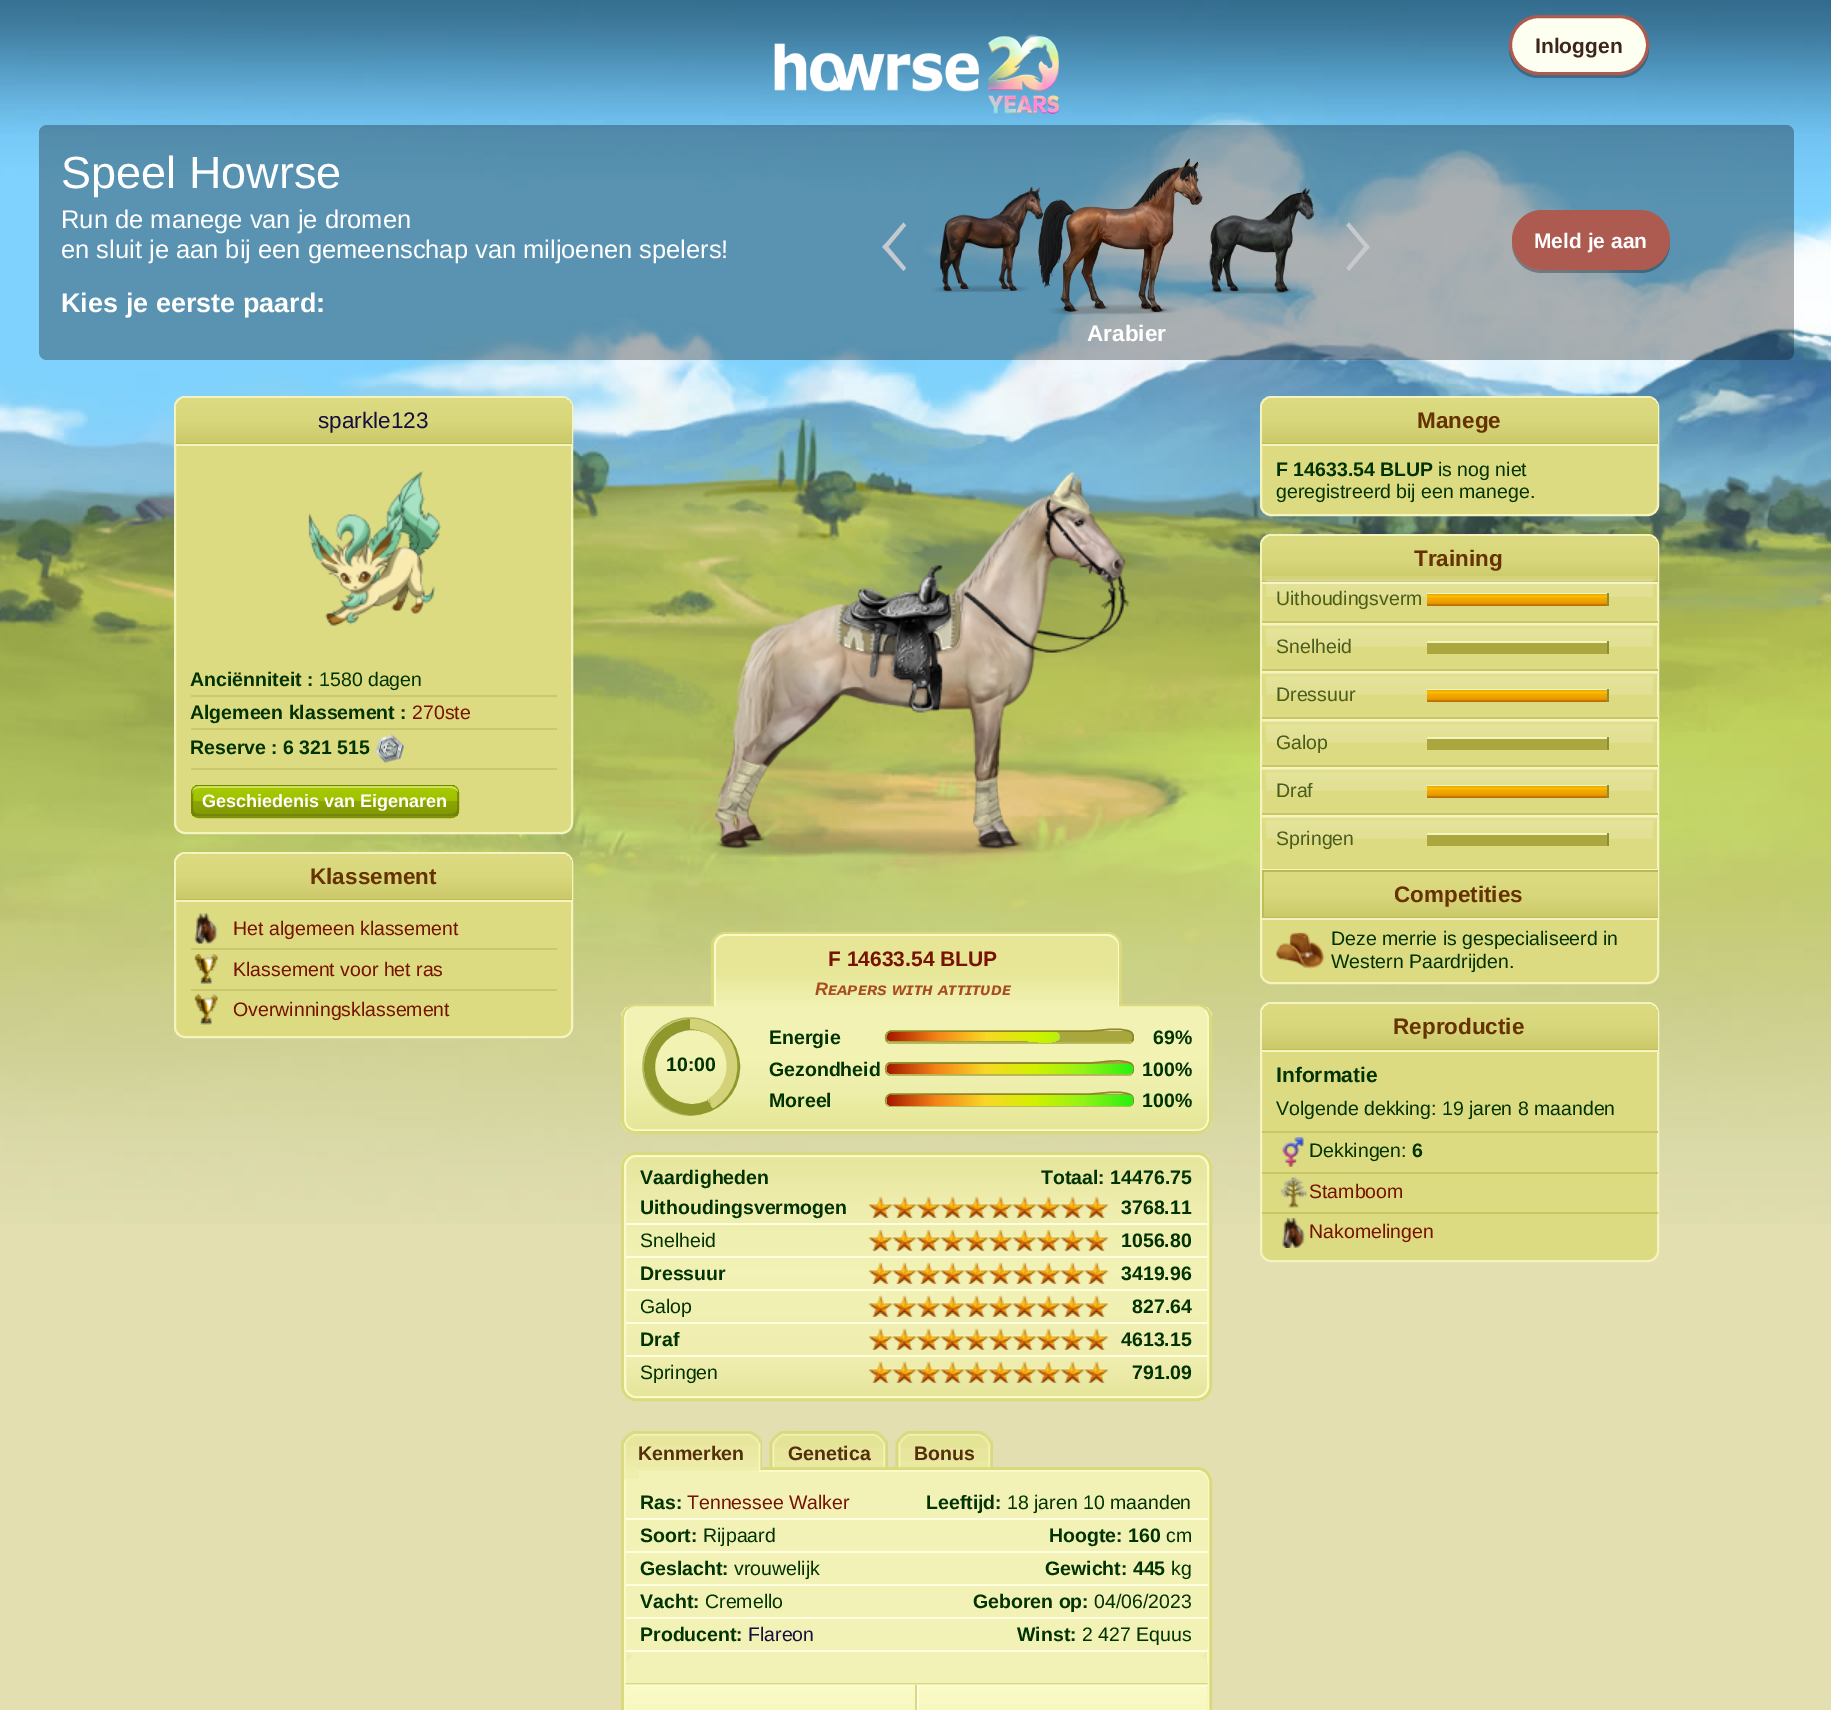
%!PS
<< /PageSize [1831 1710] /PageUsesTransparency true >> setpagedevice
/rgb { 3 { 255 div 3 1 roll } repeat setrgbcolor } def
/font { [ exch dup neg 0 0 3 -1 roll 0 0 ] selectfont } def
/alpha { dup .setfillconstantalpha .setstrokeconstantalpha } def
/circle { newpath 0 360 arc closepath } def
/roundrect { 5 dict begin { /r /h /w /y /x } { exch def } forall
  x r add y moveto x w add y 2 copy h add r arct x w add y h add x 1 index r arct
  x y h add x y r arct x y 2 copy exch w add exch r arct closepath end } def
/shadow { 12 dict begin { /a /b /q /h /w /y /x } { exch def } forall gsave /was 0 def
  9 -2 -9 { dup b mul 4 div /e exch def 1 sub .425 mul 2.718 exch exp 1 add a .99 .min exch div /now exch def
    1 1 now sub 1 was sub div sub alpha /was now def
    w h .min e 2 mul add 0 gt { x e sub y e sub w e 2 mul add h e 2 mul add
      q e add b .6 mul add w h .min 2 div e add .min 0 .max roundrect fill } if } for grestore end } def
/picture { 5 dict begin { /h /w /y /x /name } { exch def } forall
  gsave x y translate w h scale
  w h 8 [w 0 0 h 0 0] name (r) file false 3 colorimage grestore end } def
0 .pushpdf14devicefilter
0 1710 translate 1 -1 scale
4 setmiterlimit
227 223 177 rgb
0 0 1831 1710 rectfill
(img/1.rgb) 0 0 1831 1224 picture
(img/2.rgb) 774 34 285 80 picture
0.3 alpha
0 0 0 rgb
1509 46 moveto 1509 48 lineto 1509 65 1522 78 1539 78 curveto 1619 78 lineto 1636 78 1649 65 1649 48 curveto 1648 42 lineto 1648 45 lineto 1648 62 1635 75 1618 75 curveto 1539 75 lineto 1523 75 1510 62 1509 46 curveto closepath fill
1 alpha
253 255 240 rgb
1510.5 16.5 137 57 28.5 roundrect gsave fill grestore
173 91 80 rgb
3 setlinewidth
stroke
0.3 alpha
0 0 0 rgb
39 125 1755 235 8 roundrect fill
1512 241 moveto 1512 243 lineto 1512 260 1525 273 1542 273 curveto 1640 273 lineto 1657 273 1670 260 1670 243 curveto 1669 237 lineto 1670 240 lineto 1670 257 1656 270 1640 270 curveto 1542 270 lineto 1526 270 1513 257 1512 241 curveto closepath fill
1 alpha
173 91 80 rgb
1512 210 158 60 30 roundrect fill
198 202 206 rgb
885.5 243.5 moveto 906 268 lineto 903.5 271 lineto 882.5 247 lineto closepath fill
903.5 222.5 moveto 906 225.5 lineto 885.5 250 lineto 882.5 247 lineto closepath fill
(img/3.rgb) 932 186 112 107 picture
(img/4.rgb) 1037 158 166 157 picture
(img/5.rgb) 1206 187 109 107 picture
1367 250 moveto 1346.5 225.5 lineto 1349 222.5 lineto 1369.5 247 lineto closepath fill
1349 271 moveto 1346.5 268 lineto 1367 243.5 lineto 1369.5 247 lineto closepath fill
220 219 129 rgb
175 397 397 436 10 roundrect gsave fill grestore
245 244 193 rgb
2 setlinewidth
stroke
gsave 187 398 moveto 561 398 lineto 567 398 572 403 572 409 curveto 572 443 lineto 176 443 lineto 176 409 lineto 176 403 181 398 187 398 curveto closepath clip newpath
<< /ShadingType 2 /ColorSpace /DeviceRGB /Coords [374 398 374 443] /Extend [true true] /Function << /FunctionType 3 /Domain [0 1] /Functions [<< /FunctionType 2 /Domain [0 1] /C0 [0.863 0.859 0.506] /C1 [0.847 0.843 0.486] /N 1 >> << /FunctionType 2 /Domain [0 1] /C0 [0.847 0.843 0.486] /C1 [0.796 0.788 0.412] /N 1 >>] /Bounds [0.5] /Encode [0 1 0 1] >> >> shfill grestore
gsave 571 443 moveto 572 443 lineto 572 444 lineto 571 444 lineto closepath clip newpath
<< /ShadingType 2 /ColorSpace /DeviceRGB /Coords [374 443 374 488] /Extend [true true] /Function << /FunctionType 3 /Domain [0 1] /Functions [<< /FunctionType 2 /Domain [0 1] /C0 [0.863 0.859 0.506] /C1 [0.847 0.843 0.486] /N 1 >> << /FunctionType 2 /Domain [0 1] /C0 [0.847 0.843 0.486] /C1 [0.796 0.788 0.412] /N 1 >>] /Bounds [0.5] /Encode [0 1 0 1] >> >> shfill grestore
0.8 alpha
183 181 77 rgb
176 443 396 1 rectfill
1 alpha
245 244 193 rgb
176 444 396 2 rectfill
(img/6.rgb) 308 471 134 155 picture
[
  [191 695 366 2 203 200 107]
  [191 728 366 2 203 200 107]
  [191 768 366 2 203 200 107]
] { aload pop rgb rectfill } forall
(img/7.rgb) 375 734 29 29 picture
gsave
191 785 268 33 8 roundrect clip newpath
gsave 191 785 moveto 459 785 lineto 459 786 lineto 191 786 lineto closepath clip newpath
<< /ShadingType 2 /ColorSpace /DeviceRGB /Coords [325 756 325 786] /Extend [true true] /Function << /FunctionType 3 /Domain [0 1] /Functions [<< /FunctionType 2 /Domain [0 1] /C0 [0.808 0.882 0.357] /C1 [0.659 0.8 0.004] /N 1 >> << /FunctionType 2 /Domain [0 1] /C0 [0.659 0.8 0.004] /C1 [0.624 0.753 0] /N 1 >> << /FunctionType 2 /Domain [0 1] /C0 [0.624 0.753 0] /C1 [0.545 0.655 0] /N 1 >> << /FunctionType 2 /Domain [0 1] /C0 [0.545 0.655 0] /C1 [0.51 0.588 0] /N 1 >>] /Bounds [0.02 0.5 0.51] /Encode [0 1 0 1 0 1 0 1] >> >> shfill grestore
gsave 191 786 moveto 459 786 lineto 459 816 lineto 191 816 lineto closepath clip newpath
<< /ShadingType 2 /ColorSpace /DeviceRGB /Coords [325 786 325 816] /Extend [true true] /Function << /FunctionType 3 /Domain [0 1] /Functions [<< /FunctionType 2 /Domain [0 1] /C0 [0.808 0.882 0.357] /C1 [0.659 0.8 0.004] /N 1 >> << /FunctionType 2 /Domain [0 1] /C0 [0.659 0.8 0.004] /C1 [0.624 0.753 0] /N 1 >> << /FunctionType 2 /Domain [0 1] /C0 [0.624 0.753 0] /C1 [0.545 0.655 0] /N 1 >> << /FunctionType 2 /Domain [0 1] /C0 [0.545 0.655 0] /C1 [0.51 0.588 0] /N 1 >>] /Bounds [0.02 0.5 0.51] /Encode [0 1 0 1 0 1 0 1] >> >> shfill grestore
gsave 191 816 moveto 459 816 lineto 459 818 lineto 191 818 lineto closepath clip newpath
<< /ShadingType 2 /ColorSpace /DeviceRGB /Coords [325 816 325 846] /Extend [true true] /Function << /FunctionType 3 /Domain [0 1] /Functions [<< /FunctionType 2 /Domain [0 1] /C0 [0.808 0.882 0.357] /C1 [0.659 0.8 0.004] /N 1 >> << /FunctionType 2 /Domain [0 1] /C0 [0.659 0.8 0.004] /C1 [0.624 0.753 0] /N 1 >> << /FunctionType 2 /Domain [0 1] /C0 [0.624 0.753 0] /C1 [0.545 0.655 0] /N 1 >> << /FunctionType 2 /Domain [0 1] /C0 [0.545 0.655 0] /C1 [0.51 0.588 0] /N 1 >>] /Bounds [0.02 0.5 0.51] /Encode [0 1 0 1 0 1 0 1] >> >> shfill grestore
grestore
0.7 alpha
110 123 1 rgb
192 786 266 31 7 roundrect stroke
1 alpha
206 225 91 rgb
200 786 moveto 195 786 192 789 192 794 curveto 192 790 195 788 200 788 curveto 450 788 lineto 453 788 456 789 458 792 curveto 458 788 453 786 450 786 curveto closepath fill
0.5 alpha
98 119 24 rgb
200 816 moveto 450 816 lineto 453 816 458 814 458 810 curveto 456 813 453 814 450 814 curveto 200 814 lineto 195 814 192 812 192 808 curveto 192 813 195 816 200 816 curveto closepath fill
1 alpha
220 219 129 rgb
175 853 397 184 10 roundrect gsave fill grestore
245 244 193 rgb
stroke
gsave 187 854 moveto 561 854 lineto 567 854 572 859 572 865 curveto 572 899 lineto 176 899 lineto 176 865 lineto 176 859 181 854 187 854 curveto closepath clip newpath
<< /ShadingType 2 /ColorSpace /DeviceRGB /Coords [374 854 374 899] /Extend [true true] /Function << /FunctionType 3 /Domain [0 1] /Functions [<< /FunctionType 2 /Domain [0 1] /C0 [0.863 0.859 0.506] /C1 [0.847 0.843 0.486] /N 1 >> << /FunctionType 2 /Domain [0 1] /C0 [0.847 0.843 0.486] /C1 [0.796 0.788 0.412] /N 1 >>] /Bounds [0.5] /Encode [0 1 0 1] >> >> shfill grestore
gsave 571 899 moveto 572 899 lineto 572 900 lineto 571 900 lineto closepath clip newpath
<< /ShadingType 2 /ColorSpace /DeviceRGB /Coords [374 899 374 944] /Extend [true true] /Function << /FunctionType 3 /Domain [0 1] /Functions [<< /FunctionType 2 /Domain [0 1] /C0 [0.863 0.859 0.506] /C1 [0.847 0.843 0.486] /N 1 >> << /FunctionType 2 /Domain [0 1] /C0 [0.847 0.843 0.486] /C1 [0.796 0.788 0.412] /N 1 >>] /Bounds [0.5] /Encode [0 1 0 1] >> >> shfill grestore
0.8 alpha
[
  [176 899 396 1 183 181 77]
] { aload pop rgb rectfill } forall
1 alpha
[
  [176 900 396 2 245 244 193]
  [191 948 366 2 203 200 107]
] { aload pop rgb rectfill } forall
(img/8.rgb) 194 913 24 31 picture
191 989 366 2 rectfill
(img/9.rgb) 194 954 24 30 picture
(img/10.rgb) 194 994 24 31 picture
(img/11.rgb) 701 472 429 385 picture
gsave
621 1004 591 130 15 roundrect clip newpath
gsave 621 1007 moveto 1212 1007 lineto 1212 1131 lineto 621 1131 lineto closepath clip newpath
<< /ShadingType 2 /ColorSpace /DeviceRGB /Coords [917 1007 917 1131] /Extend [true true] /Function << /FunctionType 3 /Domain [0 1] /Functions [<< /FunctionType 2 /Domain [0 1] /C0 [0.945 0.953 0.706] /C1 [0.949 0.949 0.698] /N 1 >> << /FunctionType 2 /Domain [0 1] /C0 [0.949 0.949 0.698] /C1 [0.929 0.933 0.667] /N 1 >> << /FunctionType 2 /Domain [0 1] /C0 [0.929 0.933 0.667] /C1 [0.914 0.922 0.627] /N 1 >> << /FunctionType 2 /Domain [0 1] /C0 [0.914 0.922 0.627] /C1 [0.898 0.902 0.596] /N 1 >>] /Bounds [0.42 0.69 0.81] /Encode [0 1 0 1 0 1 0 1] >> >> shfill grestore
grestore
218 217 126 rgb
3 setlinewidth
622.5 1005.5 588 127 13.5 roundrect stroke
242 242 182 rgb
1.5 setlinewidth
628 1010.5 moveto 630 1008.5 633 1007 636 1007 curveto 1197 1007 lineto 1200 1007 1203 1008.5 1205 1010.5 curveto stroke
gsave 726 935 moveto 1107 935 lineto 1113.5 935 1119 940.5 1119 947 curveto 1119 1007 lineto 714 1007 lineto 714 947 lineto 714 940.5 719.5 935 726 935 curveto closepath clip newpath
<< /ShadingType 2 /ColorSpace /DeviceRGB /Coords [917 935 917 1007] /Extend [true true] /Function << /FunctionType 3 /Domain [0 1] /Functions [<< /FunctionType 2 /Domain [0 1] /C0 [0.906 0.902 0.588] /C1 [0.906 0.902 0.588] /N 1 >> << /FunctionType 2 /Domain [0 1] /C0 [0.906 0.902 0.588] /C1 [0.902 0.906 0.592] /N 1 >> << /FunctionType 2 /Domain [0 1] /C0 [0.902 0.906 0.592] /C1 [0.922 0.922 0.639] /N 1 >> << /FunctionType 2 /Domain [0 1] /C0 [0.922 0.922 0.639] /C1 [0.922 0.922 0.631] /N 1 >> << /FunctionType 2 /Domain [0 1] /C0 [0.922 0.922 0.631] /C1 [0.929 0.933 0.667] /N 1 >> << /FunctionType 2 /Domain [0 1] /C0 [0.929 0.933 0.667] /C1 [0.949 0.949 0.698] /N 1 >>] /Bounds [0.45 0.51 0.7 0.72 0.81] /Encode [0 1 0 1 0 1 0 1 0 1 0 1] >> >> shfill grestore
218 217 126 rgb
726 932 moveto 1107 932 lineto 1115 932 1122 938 1122 946 curveto 1122 1006 lineto 711 1006 lineto 711 946 lineto 711 938 718 932 726 932 curveto closepath 726 934 moveto 1107 934 lineto 1114 934 1119 940 1119 946 curveto 1119 1006 lineto 714 1006 lineto 714 946 lineto 714 940 719 934 726 934 curveto closepath eofill
250 250 198 rgb
726 934 moveto 1107 934 lineto 1114 934 1119 940 1119 946 curveto 1119 1006 lineto 714 1006 lineto 714 946 lineto 714 940 719 934 726 934 curveto closepath 726 936 moveto 1107 936 lineto 1113 936 1118 941 1118 946 curveto 1118 1006 lineto 716 1006 lineto 716 946 lineto 716 941 720 936 726 936 curveto closepath eofill
1205 1010.5 moveto 1207 1012.5 1208 1015.5 1208 1018.5 curveto 1208 1119 lineto 1208 1122 1207 1125 1205 1127 curveto 1203 1129 1200 1130 1197 1130 curveto 636 1130 lineto 633 1130 630 1129 628 1127 curveto 626 1125 625 1122 625 1119 curveto 625 1018.5 lineto 625 1015.5 626 1012.5 628 1010.5 curveto stroke
180 183 92 rgb
690 1018 moveto 716 1018 737 1039.5 737 1066.5 curveto 737 1093.5 716 1115 690 1115 curveto 664 1115 643 1093.5 643 1066.5 curveto 643 1039.5 664 1018 690 1018 curveto closepath stroke
143 152 45 rgb
11 setlinewidth
692 1067 42.5 circle stroke
168 167 62 rgb
885 1031 249 13 6 roundrect fill
140 135 39 rgb
1.5 setlinewidth
887.5 1033 moveto 888.5 1032 889.5 1031.5 891 1031 curveto 1088.5 1031 lineto 1102.5 1031 1117 1026.5 1130 1031.5 curveto 1133.5 1033 1134.5 1039 1131.5 1041.5 curveto stroke
186 186 94 rgb
1131.5 1041.5 moveto 1130.5 1042.5 1129.5 1043 1128 1043 curveto 891 1043 lineto 889.5 1043 888.5 1042.5 887.5 1041.5 curveto stroke
158 158 53 rgb
887.5 1041.5 moveto 885 1039.5 885 1035 887.5 1033 curveto stroke
201 200 137 rgb
1055 1032 moveto 1058.5 1032 1060.5 1037.5 1058 1040 curveto 1058.5 1040.5 lineto 1061.5 1037.5 1059.5 1032 1055 1032 curveto closepath fill
0.05 alpha
85 85 85 rgb
889 1040 moveto 888 1041 lineto 892 1042 lineto 1039 1042 lineto 1044 1042 1050 1043 1056 1042 curveto 1059 1041 lineto 1058 1040 lineto 1056 1041 1054 1042 1052 1042 curveto 1039 1042 lineto 1028 1041 lineto 892 1041 lineto closepath fill
0.4 alpha
86 7 0 rgb
892 1032 moveto 888.5 1032 887 1037 889.5 1039.5 curveto 888 1041 lineto 885 1039 887.5 1032 892 1032 curveto closepath fill
1 alpha
gsave 893 1032 moveto 1056 1032 lineto 1057 1033 lineto 1059 1034 1059 1036 1059 1037 curveto 1059 1046 1033 1041 1028 1041 curveto 892 1041 lineto 889 1040 lineto 886 1037 889 1032 893 1032 curveto closepath clip newpath
<< /ShadingType 2 /ColorSpace /DeviceRGB /Coords [888 1037 1134 1037] /Extend [true true] /Function << /FunctionType 3 /Domain [0 1] /Functions [<< /FunctionType 2 /Domain [0 1] /C0 [0.651 0.094 0] /C1 [0.957 0.514 0.09] /N 1 >> << /FunctionType 2 /Domain [0 1] /C0 [0.957 0.514 0.09] /C1 [0.976 0.847 0.149] /N 1 >> << /FunctionType 2 /Domain [0 1] /C0 [0.976 0.847 0.149] /C1 [0.824 0.945 0] /N 1 >> << /FunctionType 2 /Domain [0 1] /C0 [0.824 0.945 0] /C1 [0.573 0.949 0.086] /N 1 >> << /FunctionType 2 /Domain [0 1] /C0 [0.573 0.949 0.086] /C1 [0.149 0.945 0.071] /N 1 >>] /Bounds [0.2 0.4 0.6 0.8] /Encode [0 1 0 1 0 1 0 1 0 1] >> >> shfill grestore
168 167 62 rgb
885 1062 249 14 6 roundrect fill
140 135 39 rgb
887.5 1064.5 moveto 888.5 1063.5 889.5 1063 891 1063 curveto 1088.5 1063 lineto 1102.5 1063 1117 1058 1130 1063 curveto 1133.5 1064.5 1134.5 1070.5 1131.5 1073 curveto stroke
186 186 94 rgb
1131.5 1073 moveto 1130.5 1074 1129.5 1075 1128 1075 curveto 891 1075 lineto 889.5 1075 888.5 1074 887.5 1073 curveto stroke
158 158 53 rgb
887.5 1073 moveto 885 1071 885 1066.5 887.5 1064.5 curveto stroke
gsave 887 1064 246 10 5 roundrect clip newpath
<< /ShadingType 2 /ColorSpace /DeviceRGB /Coords [887 1069 1133 1069] /Extend [true true] /Function << /FunctionType 3 /Domain [0 1] /Functions [<< /FunctionType 2 /Domain [0 1] /C0 [0.651 0.094 0] /C1 [0.957 0.514 0.09] /N 1 >> << /FunctionType 2 /Domain [0 1] /C0 [0.957 0.514 0.09] /C1 [0.976 0.847 0.149] /N 1 >> << /FunctionType 2 /Domain [0 1] /C0 [0.976 0.847 0.149] /C1 [0.824 0.945 0] /N 1 >> << /FunctionType 2 /Domain [0 1] /C0 [0.824 0.945 0] /C1 [0.573 0.949 0.086] /N 1 >> << /FunctionType 2 /Domain [0 1] /C0 [0.573 0.949 0.086] /C1 [0.149 0.945 0.071] /N 1 >>] /Bounds [0.2 0.4 0.6 0.8] /Encode [0 1 0 1 0 1 0 1 0 1] >> >> shfill grestore
168 167 62 rgb
885 1094 249 13 6 roundrect fill
140 135 39 rgb
887.5 1096 moveto 888.5 1095 889.5 1094.5 891 1094 curveto 1088.5 1094 lineto 1102.5 1094 1117 1089.5 1130 1094.5 curveto 1133.5 1096 1134.5 1102 1131.5 1104.5 curveto stroke
186 186 94 rgb
1131.5 1104.5 moveto 1130.5 1105.5 1129.5 1106 1128 1106 curveto 891 1106 lineto 889.5 1106 888.5 1105.5 887.5 1104.5 curveto stroke
158 158 53 rgb
887.5 1104.5 moveto 885 1102.5 885 1098 887.5 1096 curveto stroke
gsave 887 1095 246 11 5.5 roundrect clip newpath
<< /ShadingType 2 /ColorSpace /DeviceRGB /Coords [887 1100 1133 1100] /Extend [true true] /Function << /FunctionType 3 /Domain [0 1] /Functions [<< /FunctionType 2 /Domain [0 1] /C0 [0.651 0.094 0] /C1 [0.957 0.514 0.09] /N 1 >> << /FunctionType 2 /Domain [0 1] /C0 [0.957 0.514 0.09] /C1 [0.976 0.847 0.149] /N 1 >> << /FunctionType 2 /Domain [0 1] /C0 [0.976 0.847 0.149] /C1 [0.824 0.945 0] /N 1 >> << /FunctionType 2 /Domain [0 1] /C0 [0.824 0.945 0] /C1 [0.573 0.949 0.086] /N 1 >> << /FunctionType 2 /Domain [0 1] /C0 [0.573 0.949 0.086] /C1 [0.149 0.945 0.071] /N 1 >>] /Bounds [0.2 0.4 0.6 0.8] /Encode [0 1 0 1 0 1 0 1 0 1] >> >> shfill grestore
gsave
621 1152 591 249 15 roundrect clip newpath
gsave 621 1155 moveto 1212 1155 lineto 1212 1398 lineto 621 1398 lineto closepath clip newpath
<< /ShadingType 2 /ColorSpace /DeviceRGB /Coords [917 1155 917 1398] /Extend [true true] /Function << /FunctionType 3 /Domain [0 1] /Functions [<< /FunctionType 2 /Domain [0 1] /C0 [0.902 0.902 0.608] /C1 [0.933 0.929 0.678] /N 1 >> << /FunctionType 2 /Domain [0 1] /C0 [0.933 0.929 0.678] /C1 [0.949 0.949 0.714] /N 1 >> << /FunctionType 2 /Domain [0 1] /C0 [0.949 0.949 0.714] /C1 [0.937 0.933 0.686] /N 1 >> << /FunctionType 2 /Domain [0 1] /C0 [0.937 0.933 0.686] /C1 [0.902 0.898 0.608] /N 1 >>] /Bounds [0.21 0.49 0.84] /Encode [0 1 0 1 0 1 0 1] >> >> shfill grestore
grestore
218 217 126 rgb
3 setlinewidth
622.5 1153.5 588 246 13.5 roundrect stroke
250 250 198 rgb
2 setlinewidth
625 1156 583 241 11 roundrect stroke
255 255 224 rgb
626 1223 582 2 rectfill
(img/12.rgb) 868 1197 241 21 picture
(img/13.rgb) 868 1196 241 22 picture
626 1256 582 2 rectfill
(img/14.rgb) 868 1230 241 21 picture
(img/15.rgb) 868 1228 241 23 picture
626 1289 582 2 rectfill
(img/16.rgb) 868 1263 241 21 picture
(img/17.rgb) 868 1261 241 23 picture
626 1322 582 2 rectfill
(img/18.rgb) 868 1296 241 21 picture
(img/19.rgb) 868 1294 241 23 picture
626 1355 582 2 rectfill
(img/20.rgb) 868 1329 241 21 picture
(img/21.rgb) 868 1327 241 23 picture
(img/22.rgb) 868 1362 241 21 picture
(img/23.rgb) 868 1360 241 23 picture
gsave
621 1467 591 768 15 roundrect clip newpath
gsave 621 1470 moveto 1212 1470 lineto 1212 1667 lineto 621 1667 lineto closepath clip newpath
<< /ShadingType 2 /ColorSpace /DeviceRGB /Coords [917 1470 917 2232] /Extend [true true] /Function << /FunctionType 3 /Domain [0 1] /Functions [<< /FunctionType 2 /Domain [0 1] /C0 [0.902 0.902 0.608] /C1 [0.933 0.929 0.678] /N 1 >> << /FunctionType 2 /Domain [0 1] /C0 [0.933 0.929 0.678] /C1 [0.949 0.949 0.714] /N 1 >> << /FunctionType 2 /Domain [0 1] /C0 [0.949 0.949 0.714] /C1 [0.937 0.933 0.686] /N 1 >> << /FunctionType 2 /Domain [0 1] /C0 [0.937 0.933 0.686] /C1 [0.902 0.898 0.608] /N 1 >>] /Bounds [0.21 0.49 0.84] /Encode [0 1 0 1 0 1 0 1] >> >> shfill grestore
grestore
218 217 126 rgb
3 setlinewidth
622.5 1468.5 588 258 13.5 roundrect stroke
250 250 198 rgb
2 setlinewidth
625 1471 583 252 11 roundrect stroke
242 242 182 rgb
626 1472 582 184 11 roundrect fill
(img/24.rgb) 621 1431 18 48 picture
(img/25.rgb) 639 1431 123 41 picture
(img/26.rgb) 769 1431 19 37 picture
(img/27.rgb) 787 1431 101 37 picture
(img/28.rgb) 895 1431 19 37 picture
(img/29.rgb) 913 1431 80 37 picture
[
  [626 1518 582 2 255 255 224]
  [626 1551 582 2 255 255 224]
  [626 1584 582 2 255 255 224]
  [626 1617 582 2 255 255 224]
  [626 1650 582 2 255 255 224]
] { aload pop rgb rectfill } forall
242 242 182 rgb
626 1656 582 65 11 roundrect fill
(img/30.rgb) 625 1683 583 27 picture
218 217 126 rgb
915 1685 2 25 rectfill
255 255 226 rgb
917 1685 2 25 rectfill
220 219 129 rgb
1261 397 397 118 10 roundrect gsave fill grestore
245 244 193 rgb
stroke
gsave 1273 398 moveto 1647 398 lineto 1653 398 1658 403 1658 409 curveto 1658 443 lineto 1262 443 lineto 1262 409 lineto 1262 403 1267 398 1273 398 curveto closepath clip newpath
<< /ShadingType 2 /ColorSpace /DeviceRGB /Coords [1460 398 1460 443] /Extend [true true] /Function << /FunctionType 3 /Domain [0 1] /Functions [<< /FunctionType 2 /Domain [0 1] /C0 [0.863 0.859 0.506] /C1 [0.847 0.843 0.486] /N 1 >> << /FunctionType 2 /Domain [0 1] /C0 [0.847 0.843 0.486] /C1 [0.796 0.788 0.412] /N 1 >>] /Bounds [0.5] /Encode [0 1 0 1] >> >> shfill grestore
gsave 1657 443 moveto 1658 443 lineto 1658 444 lineto 1657 444 lineto closepath clip newpath
<< /ShadingType 2 /ColorSpace /DeviceRGB /Coords [1460 443 1460 488] /Extend [true true] /Function << /FunctionType 3 /Domain [0 1] /Functions [<< /FunctionType 2 /Domain [0 1] /C0 [0.863 0.859 0.506] /C1 [0.847 0.843 0.486] /N 1 >> << /FunctionType 2 /Domain [0 1] /C0 [0.847 0.843 0.486] /C1 [0.796 0.788 0.412] /N 1 >>] /Bounds [0.5] /Encode [0 1 0 1] >> >> shfill grestore
0.8 alpha
183 181 77 rgb
1262 443 396 1 rectfill
1 alpha
245 244 193 rgb
1262 444 396 2 rectfill
220 219 129 rgb
1261 535 397 448 10 roundrect gsave fill grestore
245 244 193 rgb
stroke
1262 869 396 1 rectfill
gsave 1273 536 moveto 1647 536 lineto 1653 536 1658 541 1658 547 curveto 1658 581 lineto 1262 581 lineto 1262 547 lineto 1262 541 1267 536 1273 536 curveto closepath clip newpath
<< /ShadingType 2 /ColorSpace /DeviceRGB /Coords [1460 536 1460 581] /Extend [true true] /Function << /FunctionType 3 /Domain [0 1] /Functions [<< /FunctionType 2 /Domain [0 1] /C0 [0.863 0.859 0.506] /C1 [0.847 0.843 0.486] /N 1 >> << /FunctionType 2 /Domain [0 1] /C0 [0.847 0.843 0.486] /C1 [0.796 0.788 0.412] /N 1 >>] /Bounds [0.5] /Encode [0 1 0 1] >> >> shfill grestore
gsave 1657 581 moveto 1658 581 lineto 1658 582 lineto 1657 582 lineto closepath clip newpath
<< /ShadingType 2 /ColorSpace /DeviceRGB /Coords [1460 581 1460 626] /Extend [true true] /Function << /FunctionType 3 /Domain [0 1] /Functions [<< /FunctionType 2 /Domain [0 1] /C0 [0.863 0.859 0.506] /C1 [0.847 0.843 0.486] /N 1 >> << /FunctionType 2 /Domain [0 1] /C0 [0.847 0.843 0.486] /C1 [0.796 0.788 0.412] /N 1 >>] /Bounds [0.5] /Encode [0 1 0 1] >> >> shfill grestore
0.8 alpha
183 181 77 rgb
1262 581 396 1 rectfill
1 alpha
245 244 193 rgb
1262 582 396 2 rectfill
(img/33.rgb) 1263 576 143 21 picture
(img/31.rgb) 1405 576 211 21 picture
[
  [1427 605 180 1 169 167 61]
  [1427 593 181 1 245 244 193]
  [1607 593 2 13 144 142 48]
] { aload pop rgb rectfill } forall
gsave
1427 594 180 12 rectclip
85 85 85 rgb
1428 594 180 12 0 1.5 0.5 shadow
grestore
0.9 alpha
193 105 0 rgb
1427 605 180 1 rectfill
1 alpha
gsave 1427 594 moveto 1607 594 lineto 1607 605 lineto 1427 605 lineto closepath clip newpath
<< /ShadingType 2 /ColorSpace /DeviceRGB /Coords [1517 594 1517 606] /Extend [true true] /Function << /FunctionType 3 /Domain [0 1] /Functions [<< /FunctionType 2 /Domain [0 1] /C0 [0.78 0.643 0.094] /C1 [0.945 0.71 0.024] /N 1 >> << /FunctionType 2 /Domain [0 1] /C0 [0.945 0.71 0.024] /C1 [1 0.729 0] /N 1 >> << /FunctionType 2 /Domain [0 1] /C0 [1 0.729 0] /C1 [1 0.729 0] /N 1 >> << /FunctionType 2 /Domain [0 1] /C0 [1 0.729 0] /C1 [0.953 0.671 0] /N 1 >> << /FunctionType 2 /Domain [0 1] /C0 [0.953 0.671 0] /C1 [0.91 0.612 0] /N 1 >> << /FunctionType 2 /Domain [0 1] /C0 [0.91 0.612 0] /C1 [0.757 0.412 0] /N 1 >> << /FunctionType 2 /Domain [0 1] /C0 [0.757 0.412 0] /C1 [0.757 0.412 0] /N 1 >>] /Bounds [0.08 0.18 0.23 0.36 0.74 0.99] /Encode [0 1 0 1 0 1 0 1 0 1 0 1 0 1] >> >> shfill grestore
(img/32.rgb) 1615 576 41 21 picture
201 199 101 rgb
1262 621 396 2 rectfill
(img/34.rgb) 1262 625 144 22 picture
245 244 193 rgb
1262 623 144 2 rectfill
201 199 101 rgb
1262 669 396 2 rectfill
(img/35.rgb) 1405 624 211 23 picture
[
  [1406 623 210 2 245 244 193]
  [1427 643 180 11 169 167 61]
  [1427 641 181 2 245 244 193]
  [1607 641 2 13 144 142 48]
] { aload pop rgb rectfill } forall
(img/36.rgb) 1615 624 42 23 picture
245 244 193 rgb
1616 623 42 1 rectfill
(img/34.rgb) 1262 673 144 22 picture
1262 671 144 2 rectfill
201 199 101 rgb
1262 717 396 2 rectfill
(img/35.rgb) 1405 672 211 23 picture
[
  [1406 671 210 2 245 244 193]
  [1427 701 180 1 169 167 61]
  [1427 689 181 1 245 244 193]
  [1607 689 2 13 144 142 48]
] { aload pop rgb rectfill } forall
gsave
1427 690 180 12 rectclip
85 85 85 rgb
1428 690 180 12 0 1.5 0.5 shadow
grestore
0.9 alpha
193 105 0 rgb
1427 701 180 1 rectfill
1 alpha
gsave 1427 690 moveto 1607 690 lineto 1607 701 lineto 1427 701 lineto closepath clip newpath
<< /ShadingType 2 /ColorSpace /DeviceRGB /Coords [1517 690 1517 702] /Extend [true true] /Function << /FunctionType 3 /Domain [0 1] /Functions [<< /FunctionType 2 /Domain [0 1] /C0 [0.78 0.643 0.094] /C1 [0.945 0.71 0.024] /N 1 >> << /FunctionType 2 /Domain [0 1] /C0 [0.945 0.71 0.024] /C1 [1 0.729 0] /N 1 >> << /FunctionType 2 /Domain [0 1] /C0 [1 0.729 0] /C1 [1 0.729 0] /N 1 >> << /FunctionType 2 /Domain [0 1] /C0 [1 0.729 0] /C1 [0.953 0.671 0] /N 1 >> << /FunctionType 2 /Domain [0 1] /C0 [0.953 0.671 0] /C1 [0.91 0.612 0] /N 1 >> << /FunctionType 2 /Domain [0 1] /C0 [0.91 0.612 0] /C1 [0.757 0.412 0] /N 1 >> << /FunctionType 2 /Domain [0 1] /C0 [0.757 0.412 0] /C1 [0.757 0.412 0] /N 1 >>] /Bounds [0.08 0.18 0.23 0.36 0.74 0.99] /Encode [0 1 0 1 0 1 0 1 0 1 0 1 0 1] >> >> shfill grestore
(img/36.rgb) 1615 672 42 23 picture
245 244 193 rgb
1616 671 42 1 rectfill
(img/34.rgb) 1262 721 144 22 picture
1262 719 144 2 rectfill
201 199 101 rgb
1262 765 396 2 rectfill
(img/35.rgb) 1405 720 211 23 picture
[
  [1406 719 210 2 245 244 193]
  [1427 739 180 11 169 167 61]
  [1427 737 181 2 245 244 193]
  [1607 737 2 13 144 142 48]
] { aload pop rgb rectfill } forall
(img/36.rgb) 1615 720 42 23 picture
245 244 193 rgb
1616 719 42 1 rectfill
(img/34.rgb) 1262 769 144 22 picture
1262 767 144 2 rectfill
201 199 101 rgb
1262 813 396 2 rectfill
(img/35.rgb) 1405 768 211 23 picture
[
  [1406 767 210 2 245 244 193]
  [1427 797 180 1 169 167 61]
  [1427 785 181 1 245 244 193]
  [1607 785 2 13 144 142 48]
] { aload pop rgb rectfill } forall
gsave
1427 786 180 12 rectclip
85 85 85 rgb
1428 786 180 12 0 1.5 0.5 shadow
grestore
0.9 alpha
193 105 0 rgb
1427 797 180 1 rectfill
1 alpha
gsave 1427 786 moveto 1607 786 lineto 1607 797 lineto 1427 797 lineto closepath clip newpath
<< /ShadingType 2 /ColorSpace /DeviceRGB /Coords [1517 786 1517 798] /Extend [true true] /Function << /FunctionType 3 /Domain [0 1] /Functions [<< /FunctionType 2 /Domain [0 1] /C0 [0.78 0.643 0.094] /C1 [0.945 0.71 0.024] /N 1 >> << /FunctionType 2 /Domain [0 1] /C0 [0.945 0.71 0.024] /C1 [1 0.729 0] /N 1 >> << /FunctionType 2 /Domain [0 1] /C0 [1 0.729 0] /C1 [1 0.729 0] /N 1 >> << /FunctionType 2 /Domain [0 1] /C0 [1 0.729 0] /C1 [0.953 0.671 0] /N 1 >> << /FunctionType 2 /Domain [0 1] /C0 [0.953 0.671 0] /C1 [0.91 0.612 0] /N 1 >> << /FunctionType 2 /Domain [0 1] /C0 [0.91 0.612 0] /C1 [0.757 0.412 0] /N 1 >> << /FunctionType 2 /Domain [0 1] /C0 [0.757 0.412 0] /C1 [0.757 0.412 0] /N 1 >>] /Bounds [0.08 0.18 0.23 0.36 0.74 0.99] /Encode [0 1 0 1 0 1 0 1 0 1 0 1 0 1] >> >> shfill grestore
(img/36.rgb) 1615 768 42 23 picture
245 244 193 rgb
1616 767 42 1 rectfill
(img/34.rgb) 1262 817 144 22 picture
1262 815 144 2 rectfill
(img/35.rgb) 1405 816 211 23 picture
[
  [1406 815 210 2 245 244 193]
  [1427 835 180 11 169 167 61]
  [1427 833 181 2 245 244 193]
  [1607 833 2 13 144 142 48]
] { aload pop rgb rectfill } forall
(img/36.rgb) 1615 816 42 23 picture
245 244 193 rgb
1616 815 42 1 rectfill
gsave 1262 872 moveto 1658 872 lineto 1658 917 lineto 1262 917 lineto closepath clip newpath
<< /ShadingType 2 /ColorSpace /DeviceRGB /Coords [1460 872 1460 917] /Extend [true true] /Function << /FunctionType 3 /Domain [0 1] /Functions [<< /FunctionType 2 /Domain [0 1] /C0 [0.863 0.859 0.506] /C1 [0.847 0.843 0.486] /N 1 >> << /FunctionType 2 /Domain [0 1] /C0 [0.847 0.843 0.486] /C1 [0.796 0.788 0.412] /N 1 >>] /Bounds [0.5] /Encode [0 1 0 1] >> >> shfill grestore
gsave 1657 917 moveto 1658 917 lineto 1658 918 lineto 1657 918 lineto closepath clip newpath
<< /ShadingType 2 /ColorSpace /DeviceRGB /Coords [1460 917 1460 962] /Extend [true true] /Function << /FunctionType 3 /Domain [0 1] /Functions [<< /FunctionType 2 /Domain [0 1] /C0 [0.863 0.859 0.506] /C1 [0.847 0.843 0.486] /N 1 >> << /FunctionType 2 /Domain [0 1] /C0 [0.847 0.843 0.486] /C1 [0.796 0.788 0.412] /N 1 >>] /Bounds [0.5] /Encode [0 1 0 1] >> >> shfill grestore
0.7 alpha
[
  [1262 872 2 45 181 183 77]
] { aload pop rgb rectfill } forall
1 alpha
[
  [1262 870 396 2 187 185 83]
] { aload pop rgb rectfill } forall
0.8 alpha
[
  [1262 917 396 1 183 181 77]
] { aload pop rgb rectfill } forall
1 alpha
[
  [1262 918 396 2 245 244 193]
] { aload pop rgb rectfill } forall
(img/37.rgb) 1276 932 49 37 picture
220 219 129 rgb
1261 1003 397 258 10 roundrect gsave fill grestore
245 244 193 rgb
stroke
gsave 1273 1004 moveto 1647 1004 lineto 1653 1004 1658 1009 1658 1015 curveto 1658 1049 lineto 1262 1049 lineto 1262 1015 lineto 1262 1009 1267 1004 1273 1004 curveto closepath clip newpath
<< /ShadingType 2 /ColorSpace /DeviceRGB /Coords [1460 1004 1460 1049] /Extend [true true] /Function << /FunctionType 3 /Domain [0 1] /Functions [<< /FunctionType 2 /Domain [0 1] /C0 [0.863 0.859 0.506] /C1 [0.847 0.843 0.486] /N 1 >> << /FunctionType 2 /Domain [0 1] /C0 [0.847 0.843 0.486] /C1 [0.796 0.788 0.412] /N 1 >>] /Bounds [0.5] /Encode [0 1 0 1] >> >> shfill grestore
gsave 1657 1049 moveto 1658 1049 lineto 1658 1050 lineto 1657 1050 lineto closepath clip newpath
<< /ShadingType 2 /ColorSpace /DeviceRGB /Coords [1460 1049 1460 1094] /Extend [true true] /Function << /FunctionType 3 /Domain [0 1] /Functions [<< /FunctionType 2 /Domain [0 1] /C0 [0.863 0.859 0.506] /C1 [0.847 0.843 0.486] /N 1 >> << /FunctionType 2 /Domain [0 1] /C0 [0.847 0.843 0.486] /C1 [0.796 0.788 0.412] /N 1 >>] /Bounds [0.5] /Encode [0 1 0 1] >> >> shfill grestore
0.8 alpha
[
  [1262 1049 396 1 183 181 77]
] { aload pop rgb rectfill } forall
1 alpha
[
  [1262 1050 396 2 245 244 193]
  [1262 1131 396 2 201 199 101]
  [1262 1172 396 2 201 199 101]
] { aload pop rgb rectfill } forall
(img/38.rgb) 1282 1137 23 30 picture
1262 1212 396 2 rectfill
(img/39.rgb) 1280 1177 27 31 picture
(img/40.rgb) 1282 1218 23 30 picture
/LiberationSans-Bold 21 font
61 37 27 rgb
1535 53 moveto (Inloggen) show
/LiberationSans-Regular 45 font
255 255 255 rgb
61 188 moveto (Speel Howrse) show
/LiberationSans-Regular 25.5 font
61 228 moveto (Run de manege van je dromen) show
61 258 moveto (en sluit je aan bij een gemeenschap van miljoenen spelers!) show
/LiberationSans-Bold 27 font
61 312 moveto (Kies je eerste paard:) show
/LiberationSans-Bold 21 font
1534 248 moveto (Meld je aan) show
/LiberationSans-Bold 22.5 font
1087 341 moveto (Arabier) show
/LiberationSans-Regular 22.5 font
20 15 61 rgb
318 428 moveto (sparkle123) show
/LiberationSans-Bold 19.5 font
0 51 0 rgb
190 686 moveto (Anciënniteit :) show
/LiberationSans-Regular 19.5 font
319 686 moveto (1580 dagen) show
/LiberationSans-Bold 19.5 font
190 719 moveto (Algemeen klassement :) show
/LiberationSans-Regular 19.5 font
119 17 0 rgb
412 719 moveto (270ste) show
/LiberationSans-Bold 19.5 font
0 51 0 rgb
190 754 moveto (Reserve : 6 321 515) show
/LiberationSans-Bold 18 font
255 255 255 rgb
202 807 moveto (Geschiedenis van Eigenaren) show
/LiberationSans-Bold 22.5 font
102 51 0 rgb
310 884 moveto (Klassement) show
/LiberationSans-Regular 19.5 font
119 17 0 rgb
[
  [(Het algemeen klassement) 233 935]
  [(Klassement voor het ras) 233 976]
  [(Overwinningsklassement) 233 1016]
] { aload pop moveto show } forall
/LiberationSans-Bold 21 font
828 966 moveto (F 14633.54 BLUP) show
/LiberationSans-BoldItalic 18 font
168 77 32 rgb
815 995 moveto (Rᴇᴀᴘᴇʀs ᴡɪᴛʜ ᴀᴛᴛɪᴛᴜᴅᴇ) show
/LiberationSans-Bold 19.5 font
0 51 0 rgb
666 1071 moveto (10:00) show
gsave
690 1019 48 96 rectclip
755 1084 moveto 713 1108 lineto 665 1025 lineto 707 1001 lineto closepath clip newpath
211 210 120 rgb
10.5 setlinewidth
710.5 1103.5 moveto 690 1115.5 664 1108.5 652 1088 curveto 640.5 1067.5 647.5 1041.5 668 1029.5 curveto 688.5 1017.5 714.5 1024.5 726.5 1045 curveto 738 1065.5 731 1091.5 710.5 1103.5 curveto closepath stroke
grestore
[
  [(Energie) 769 1044]
  [(69%) 1153 1044]
  [(Gezondheid) 769 1076]
  [(100%) 1142 1076]
  [(Moreel) 769 1107]
  [(100%) 1142 1107]
  [(Vaardigheden) 640 1184]
  [(Totaal: 14476.75) 1041 1184]
  [(Uithoudingsvermogen) 640 1214]
  [(3768.11) 1121 1214]
] { aload pop moveto show } forall
/LiberationSans-Regular 19.5 font
640 1247 moveto (Snelheid) show
/LiberationSans-Bold 19.5 font
[
  [(1056.80) 1121 1247]
  [(Dressuur) 640 1280]
  [(3419.96) 1121 1280]
] { aload pop moveto show } forall
/LiberationSans-Regular 19.5 font
640 1313 moveto (Galop) show
/LiberationSans-Bold 19.5 font
[
  [(827.64) 1132 1313]
  [(Draf) 640 1346]
  [(4613.15) 1121 1346]
] { aload pop moveto show } forall
/LiberationSans-Regular 19.5 font
640 1379 moveto (Springen) show
/LiberationSans-Bold 19.5 font
1132 1379 moveto (791.09) show
85 47 10 rgb
[
  [(Kenmerken) 638 1460]
  [(Genetica) 788 1460]
  [(Bonus) 914 1460]
] { aload pop moveto show } forall
0 51 0 rgb
640 1509 moveto (Ras:) show
/LiberationSans-Regular 19.5 font
119 17 0 rgb
687 1509 moveto (Tennessee Walker) show
/LiberationSans-Bold 19.5 font
0 51 0 rgb
926 1509 moveto (Leeftijd:) show
/LiberationSans-Regular 19.5 font
1007 1509 moveto (18 jaren 10 maanden) show
/LiberationSans-Bold 19.5 font
640 1542 moveto (Soort:) show
/LiberationSans-Regular 19.5 font
703 1542 moveto (Rijpaard) show
/LiberationSans-Bold 19.5 font
1049 1542 moveto (Hoogte: 160) show
/LiberationSans-Regular 19.5 font
1166 1542 moveto (cm) show
/LiberationSans-Bold 19.5 font
640 1575 moveto (Geslacht:) show
/LiberationSans-Regular 19.5 font
734 1575 moveto (vrouwelijk) show
/LiberationSans-Bold 19.5 font
1045 1575 moveto (Gewicht: 445) show
/LiberationSans-Regular 19.5 font
1171 1575 moveto (kg) show
/LiberationSans-Bold 19.5 font
640 1608 moveto (Vacht:) show
/LiberationSans-Regular 19.5 font
705 1608 moveto (Cremello) show
/LiberationSans-Bold 19.5 font
973 1608 moveto (Geboren op:) show
/LiberationSans-Regular 19.5 font
1094 1608 moveto (04/06/2023) show
/LiberationSans-Bold 19.5 font
640 1641 moveto (Producent:) show
/LiberationSans-Regular 19.5 font
20 15 61 rgb
748 1641 moveto (Flareon) show
/LiberationSans-Bold 19.5 font
0 51 0 rgb
1017 1641 moveto (Winst:) show
/LiberationSans-Regular 19.5 font
1082 1641 moveto (2 427 Equus) show
/LiberationSans-Bold 22.5 font
102 51 0 rgb
1417 428 moveto (Manege) show
/LiberationSans-Bold 19.5 font
0 51 0 rgb
1276 476 moveto (F 14633.54 BLUP) show
/LiberationSans-Regular 19.5 font
1438 476 moveto (is nog niet) show
1276 498 moveto (geregistreerd bij een manege.) show
/LiberationSans-Bold 22.5 font
102 51 0 rgb
1414 566 moveto (Training) show
/LiberationSans-Regular 19.5 font
74 92 30 rgb
[
  [(Uithoudingsverm) 1276 605]
  [(Snelheid) 1276 653]
  [(Dressuur) 1276 701]
  [(Galop) 1276 749]
  [(Draf) 1276 797]
  [(Springen) 1276 845]
] { aload pop moveto show } forall
/LiberationSans-Bold 22.5 font
102 51 0 rgb
1394 902 moveto (Competities) show
/LiberationSans-Regular 19.5 font
0 51 0 rgb
1331 945 moveto (Deze merrie is gespecialiseerd in) show
1331 968 moveto (Western Paardrijden.) show
/LiberationSans-Bold 22.5 font
102 51 0 rgb
1393 1034 moveto (Reproductie) show
/LiberationSans-Bold 21 font
0 51 0 rgb
1276 1082 moveto (Informatie) show
/LiberationSans-Regular 19.5 font
1276 1115 moveto (Volgende dekking: 19 jaren 8 maanden) show
1309 1157 moveto (Dekkingen:) show
/LiberationSans-Bold 19.5 font
1412 1157 moveto (6) show
/LiberationSans-Regular 19.5 font
119 17 0 rgb
1309 1198 moveto (Stamboom) show
1309 1238 moveto (Nakomelingen) show
.poppdf14devicefilter showpage
